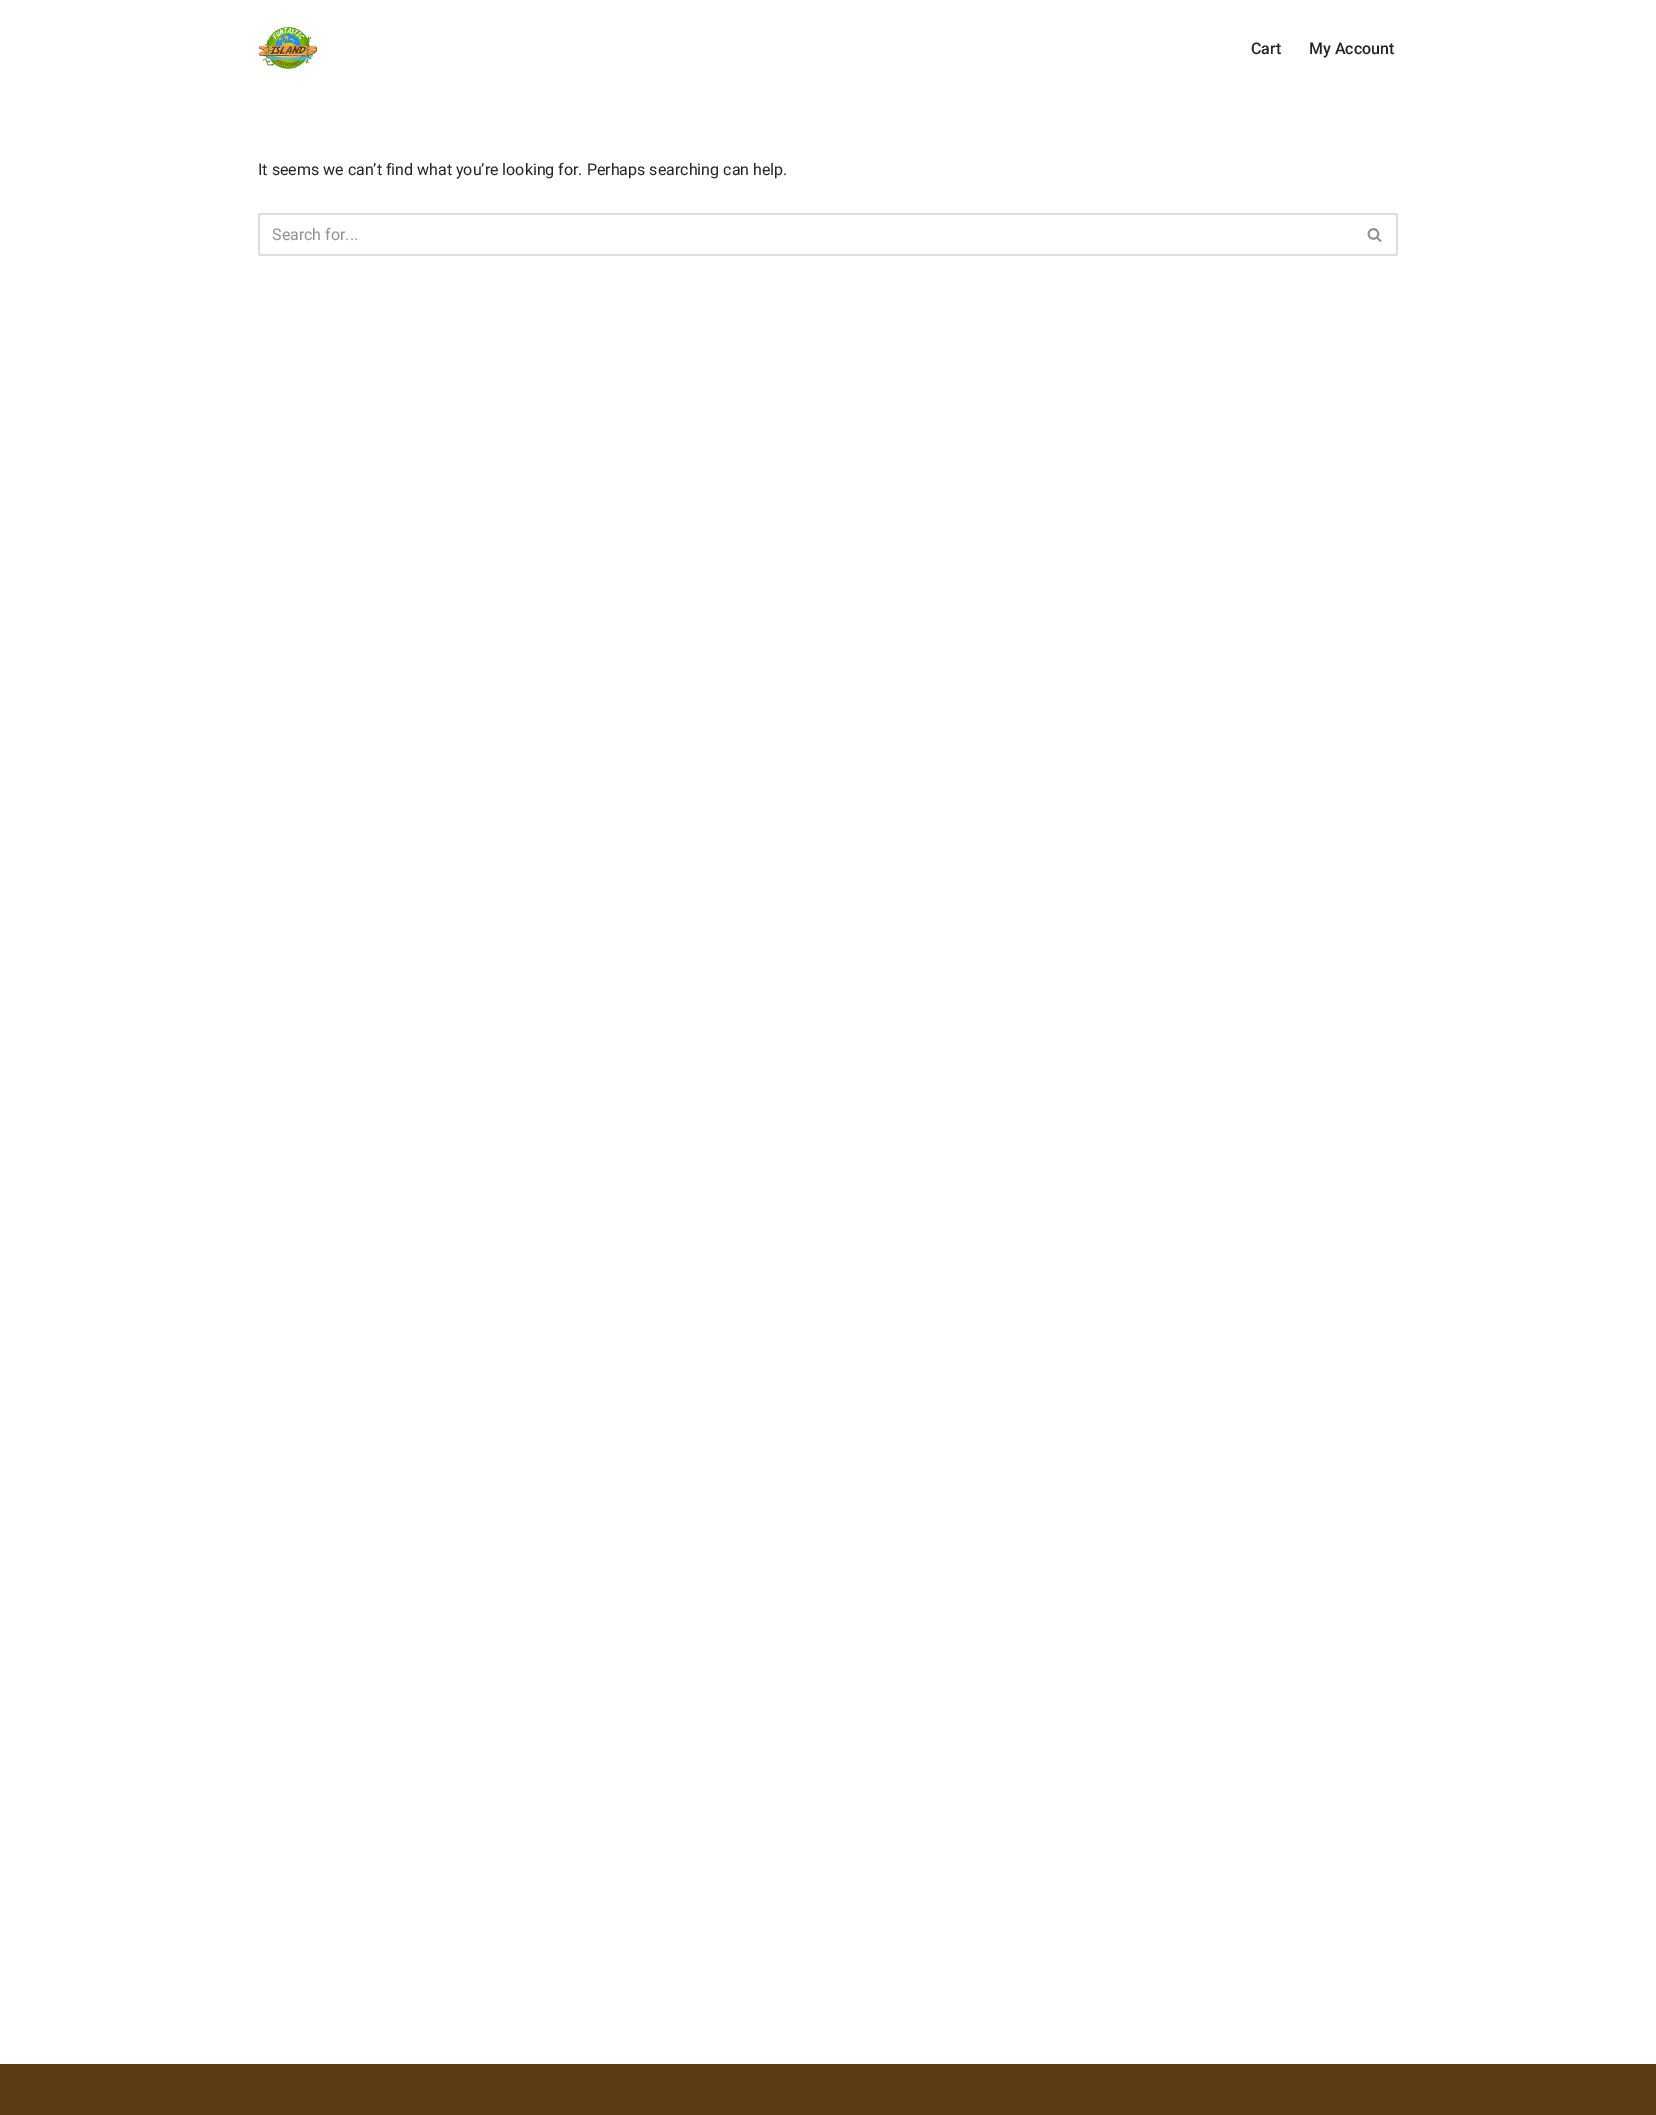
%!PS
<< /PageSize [1656 2115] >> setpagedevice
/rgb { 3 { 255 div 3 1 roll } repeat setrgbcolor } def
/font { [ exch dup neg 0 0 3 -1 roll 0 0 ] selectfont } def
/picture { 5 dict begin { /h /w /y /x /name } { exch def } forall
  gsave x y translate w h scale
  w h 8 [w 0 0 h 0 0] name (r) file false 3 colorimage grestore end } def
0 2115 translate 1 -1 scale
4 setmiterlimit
255 255 255 rgb
0 0 1656 2115 rectfill
(img/1.rgb) 258 27 60 42 picture
221 221 221 rgb
261 213 moveto 1353 213 lineto 1353 256 lineto 261 256 lineto 259 256 258 255 258 253 curveto 258 216 lineto 258 214 259 213 261 213 curveto closepath 261 215 moveto 1353 215 lineto 1353 254 lineto 261 254 lineto 260 254 260 254 260 253 curveto 260 216 lineto 260 215 260 215 261 215 curveto closepath eofill
1353 213 moveto 1395 213 lineto 1397 213 1398 214 1398 216 curveto 1398 253 lineto 1398 255 1397 256 1395 256 curveto 1353 256 lineto closepath 1353 215 moveto 1395 215 lineto 1396 215 1396 215 1396 216 curveto 1396 253 lineto 1396 254 1396 254 1395 254 curveto 1353 254 lineto closepath eofill
(img/2.rgb) 1367 228 15 14 picture
94 60 19 rgb
0 2064 1656 51 rectfill
/Roboto-Medium 16 font
39 38 38 rgb
1251 54 moveto (Cart) show
1309 54 moveto (My Account) show
/Roboto-Regular 16 font
258 175 moveto (It seems we can’t find what you’re looking for. Perhaps searching can help.) show
147 147 147 rgb
272 240 moveto (Search for...) show
showpage
